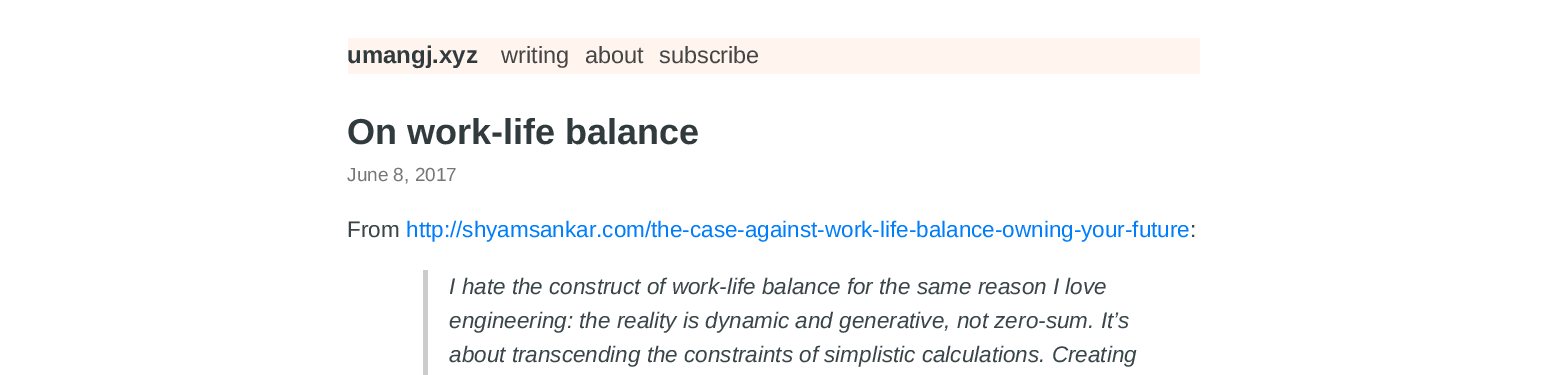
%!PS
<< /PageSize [1546 375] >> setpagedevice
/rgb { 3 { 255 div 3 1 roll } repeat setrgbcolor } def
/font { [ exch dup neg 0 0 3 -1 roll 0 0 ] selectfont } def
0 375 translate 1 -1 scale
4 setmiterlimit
255 255 255 rgb
0 0 1546 375 rectfill
255 245 238 rgb
348 38 852 36 rectfill
204 204 204 rgb
423 270 5 105 rectfill
/LiberationSans-Bold 24 font
49 58 61 rgb
347 63 moveto (umangj.xyz) show
/LiberationSans-Regular 23.5 font
69 69 69 rgb
[
  [(writing) 501 63]
  [(about) 585 63]
  [(subscribe) 659 63]
] { aload pop moveto show } forall
/LiberationSans-Bold 36 font
49 58 61 rgb
347 144 moveto (On work-life balance) show
/LiberationSans-Regular 19 font
118 118 118 rgb
347 181 moveto (June 8, 2017) show
/LiberationSans-Regular 22.5 font
57 69 72 rgb
347 237 moveto (From) show
0 125 250 rgb
406 237 moveto (http://shyamsankar.com/the-case-against-work-life-balance-owning-your-future) show
57 69 72 rgb
1190 237 moveto (:) show
/LiberationSans-Italic 22.5 font
[
  [(I hate the construct of work-life balance for the same reason I love) 449 294]
  [(engineering: the reality is dynamic and generative, not zero-sum. It’s) 449 328]
  [(about transcending the constraints of simplistic calculations. Creating) 449 362]
] { aload pop moveto show } forall
showpage
